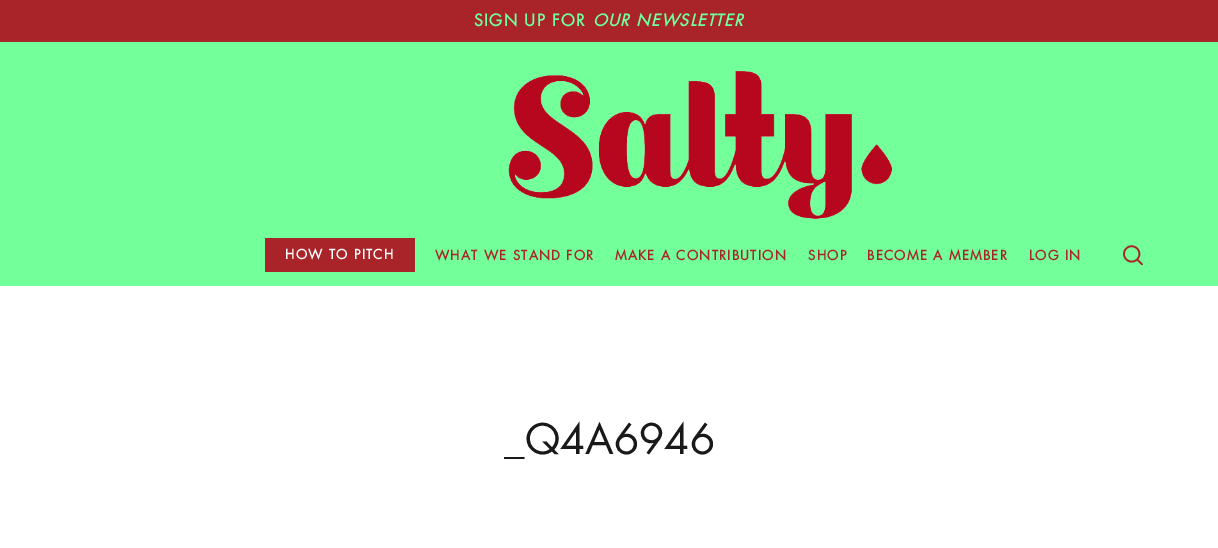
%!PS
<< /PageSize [1218 548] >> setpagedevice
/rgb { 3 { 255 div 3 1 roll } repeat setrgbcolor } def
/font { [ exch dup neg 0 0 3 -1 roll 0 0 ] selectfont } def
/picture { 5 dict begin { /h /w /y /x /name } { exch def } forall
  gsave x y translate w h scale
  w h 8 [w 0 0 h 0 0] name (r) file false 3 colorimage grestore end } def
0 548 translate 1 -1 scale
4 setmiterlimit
255 255 255 rgb
0 0 1218 548 rectfill
115 255 153 rgb
0 42 1218 244 rectfill
168 36 40 rgb
0 0 1218 42 rectfill
(img/1.rgb) 508 71 384 148 picture
265 238 150 34 rectfill
(img/2.rgb) 1123 245 20 21 picture
/Futura-Bold 16 font
115 255 157 rgb
474 26 moveto 1.25 0 (SIGN UP FOR) ashow
/Futura-BoldItalic 16 font
593 26 moveto 1.25 0 (OUR NEWSLETTER) ashow
/Futura-Bold 13 font
255 255 255 rgb
285 259 moveto 1.25 0 (HOW TO PITCH) ashow
168 36 40 rgb
435 260 moveto 1.25 0 (WHAT WE STAND FOR) ashow
615 260 moveto 1.25 0 (MAKE A CONTRIBUTION) ashow
808 260 moveto 1.25 0 (SHOP) ashow
867 260 moveto 1.25 0 (BECOME A MEMBER) ashow
1029 260 moveto 1.25 0 (LOG IN) ashow
/Futura-Regular 41 font
25 25 25 rgb
504 454 moveto (_Q4A6946) show
showpage
